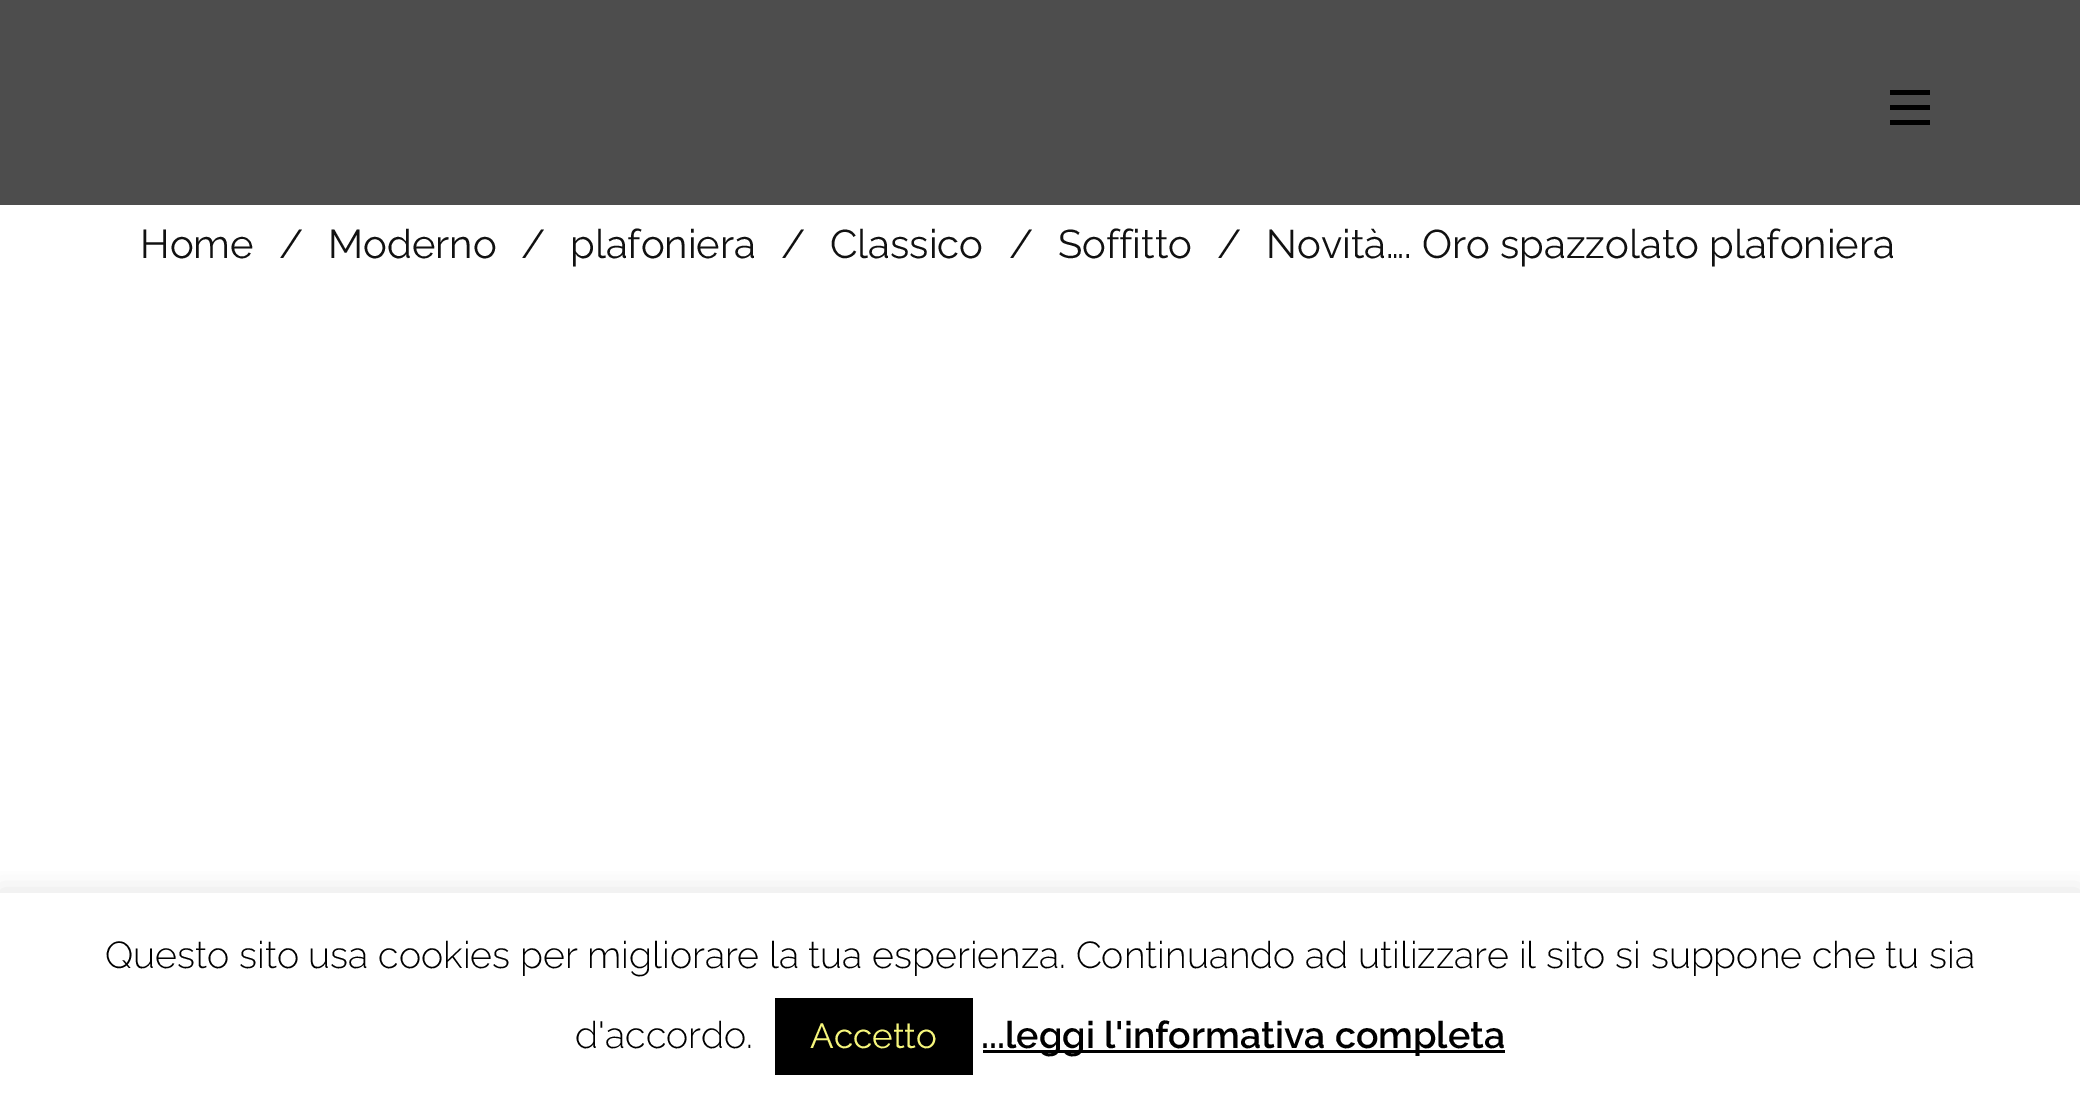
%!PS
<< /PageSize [2080 1104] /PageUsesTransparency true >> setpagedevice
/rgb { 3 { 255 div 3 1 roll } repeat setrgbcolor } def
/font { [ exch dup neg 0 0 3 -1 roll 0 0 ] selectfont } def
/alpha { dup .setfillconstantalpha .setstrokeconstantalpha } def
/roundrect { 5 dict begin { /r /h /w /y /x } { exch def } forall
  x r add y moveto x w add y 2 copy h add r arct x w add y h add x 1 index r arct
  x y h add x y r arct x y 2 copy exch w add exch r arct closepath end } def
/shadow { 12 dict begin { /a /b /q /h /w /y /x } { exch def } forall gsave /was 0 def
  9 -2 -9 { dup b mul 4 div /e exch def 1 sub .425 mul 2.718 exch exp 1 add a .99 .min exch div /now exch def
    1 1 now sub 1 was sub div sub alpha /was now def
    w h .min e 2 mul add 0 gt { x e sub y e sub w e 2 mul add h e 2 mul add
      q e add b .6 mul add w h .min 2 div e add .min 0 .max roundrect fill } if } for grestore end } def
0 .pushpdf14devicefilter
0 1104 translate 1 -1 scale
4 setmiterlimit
255 255 255 rgb
0 0 2080 1104 rectfill
[
  [0 0 2080 205 77 77 77]
  [1890 90 40 5 0 0 0]
  [1890 105 40 5 0 0 0]
  [1890 120 40 5 0 0 0]
] { aload pop rgb rectfill } forall
gsave
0 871 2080 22 rectclip
172 171 171 rgb
0 890 2080 213 0 12.5 0.3 shadow
grestore
775 998 198 77 rectfill
983 1050 522 3 rectfill
/Raleway-Regular 40 font
17 17 17 rgb
[
  [(Home) 140 258]
  [(/) 279 258]
  [(Moderno) 328 258]
  [(/) 521 258]
  [(plafoniera) 570 258]
  [(/) 781 258]
  [(Classico) 830 258]
  [(/) 1009 258]
  [(Soffitto) 1058 258]
  [(/) 1217 258]
  [(Novità…. Oro spazzolato plafoniera) 1266 258]
] { aload pop moveto show } forall
/Raleway-Light 37.5 font
0 0 0 rgb
105 968 moveto (Questo sito usa cookies per migliorare la tua esperienza. Continuando ad utilizzare il sito si suppone che tu sia) show
575 1048 moveto (d'accordo.) show
/Raleway-Regular 35 font
246 246 124 rgb
810 1048 moveto (Accetto) show
/Raleway-SemiBold 37.5 font
0 0 0 rgb
981 1048 moveto (...leggi l'informativa completa) show
.poppdf14devicefilter showpage
